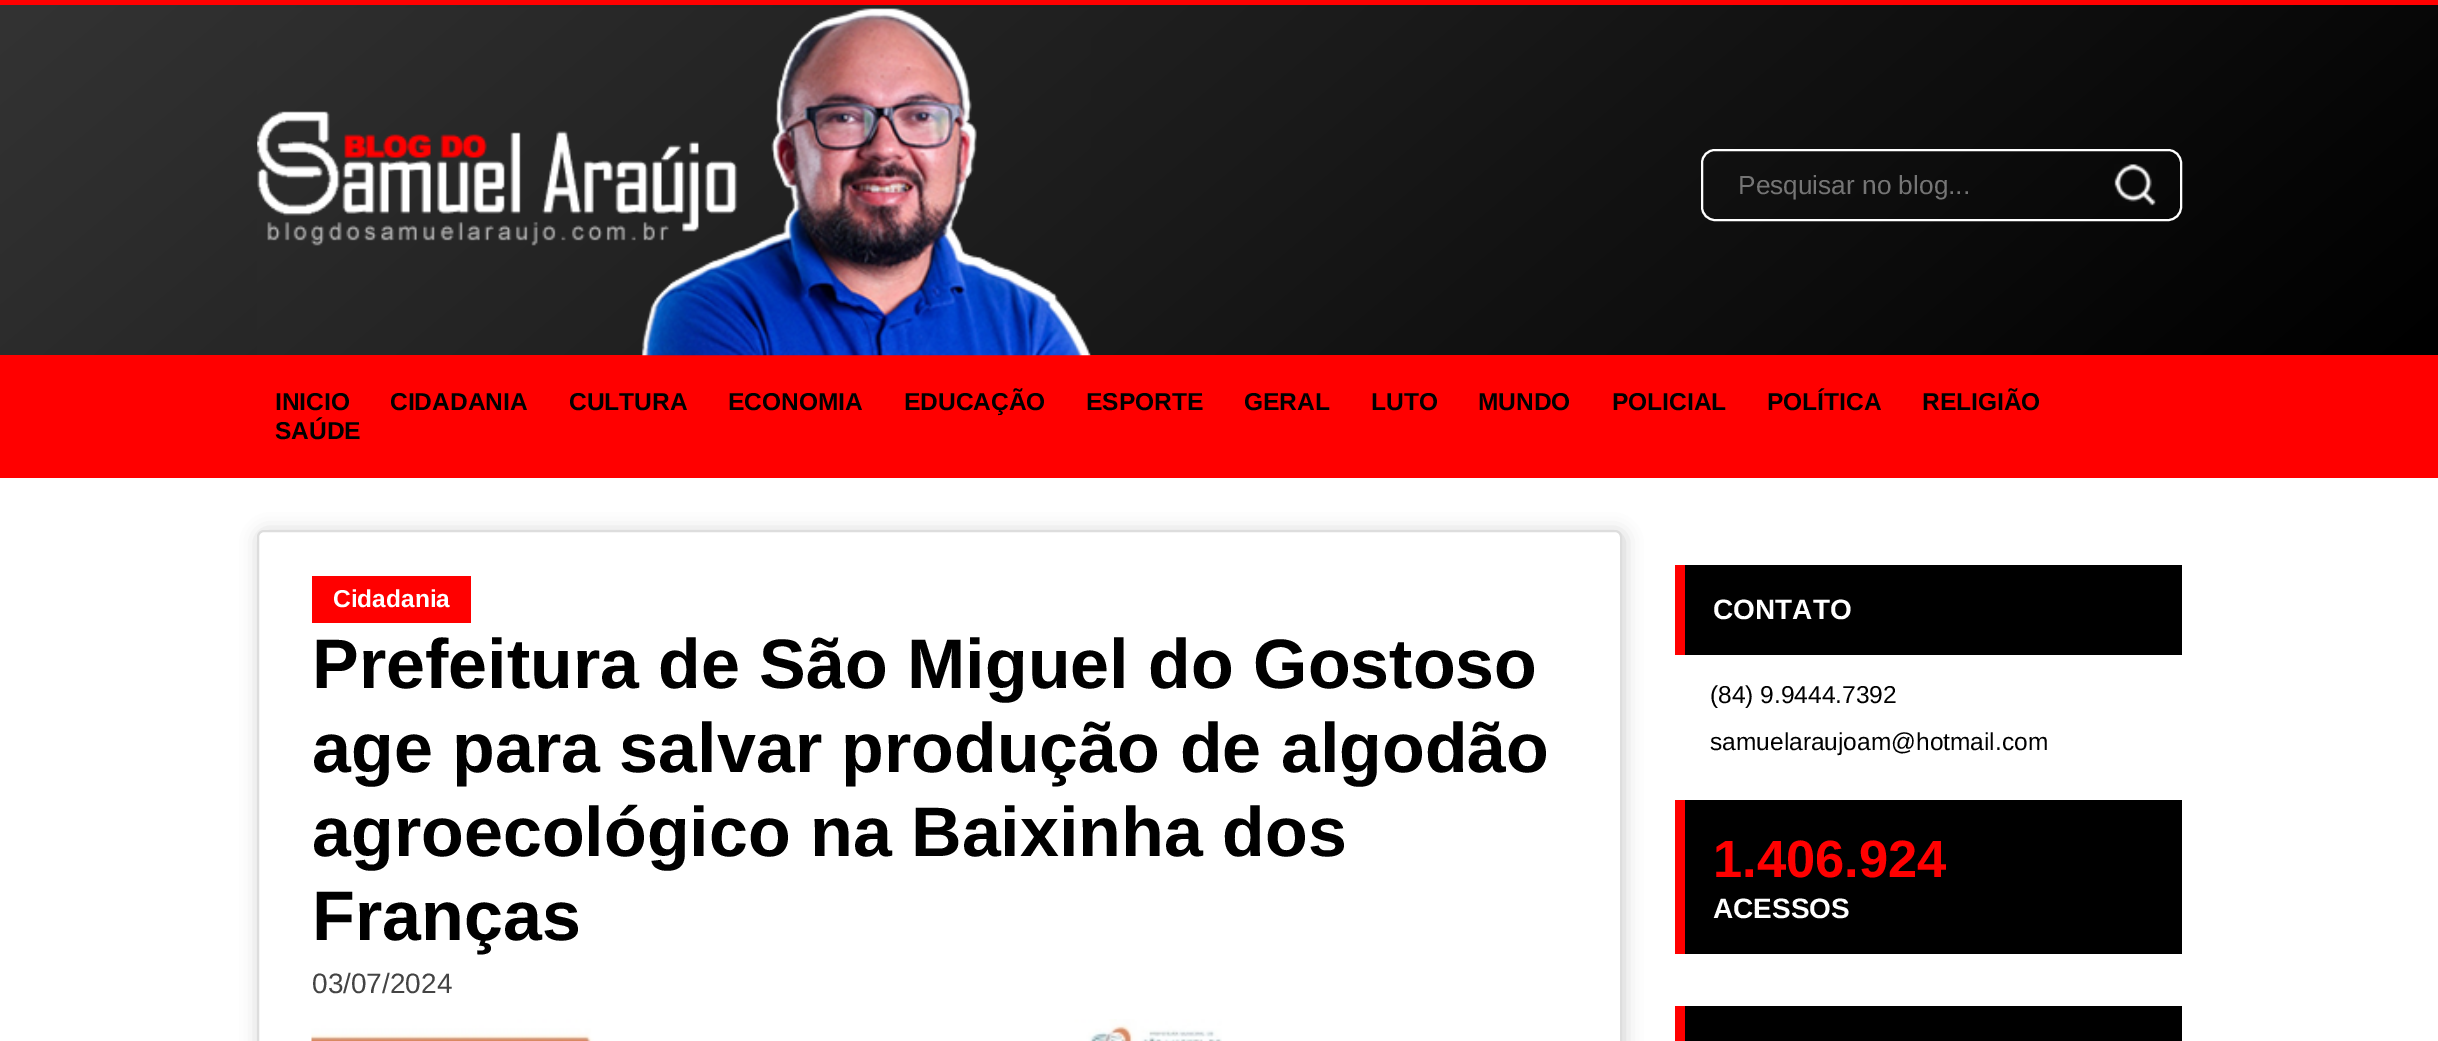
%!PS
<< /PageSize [2438 1041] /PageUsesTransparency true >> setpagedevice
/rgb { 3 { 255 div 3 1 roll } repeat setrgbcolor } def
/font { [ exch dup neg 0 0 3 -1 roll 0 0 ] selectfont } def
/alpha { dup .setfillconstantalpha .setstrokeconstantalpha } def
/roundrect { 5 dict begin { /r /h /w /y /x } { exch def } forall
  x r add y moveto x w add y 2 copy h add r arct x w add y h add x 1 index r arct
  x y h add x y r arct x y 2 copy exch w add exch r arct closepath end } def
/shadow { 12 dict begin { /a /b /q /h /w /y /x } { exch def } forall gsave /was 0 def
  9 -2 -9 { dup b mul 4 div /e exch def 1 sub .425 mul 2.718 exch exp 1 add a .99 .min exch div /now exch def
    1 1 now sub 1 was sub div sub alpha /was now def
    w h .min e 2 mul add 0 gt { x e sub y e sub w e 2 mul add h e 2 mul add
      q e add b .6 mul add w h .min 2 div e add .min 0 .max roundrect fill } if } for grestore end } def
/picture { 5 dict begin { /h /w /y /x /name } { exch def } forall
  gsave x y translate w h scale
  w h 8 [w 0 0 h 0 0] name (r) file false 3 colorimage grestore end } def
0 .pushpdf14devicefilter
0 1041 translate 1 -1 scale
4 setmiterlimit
255 255 255 rgb
0 0 2438 1041 rectfill
gsave 0 5 moveto 2438 5 lineto 2438 355 lineto 0 355 lineto closepath clip newpath
<< /ShadingType 2 /ColorSpace /DeviceRGB /Coords [630 -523 1810 884] /Extend [true true] /Function << /FunctionType 2 /Domain [0 1] /C0 [0.2 0.2 0.2] /C1 [0 0 0] /N 1 >> >> shfill grestore
255 0 0 rgb
0 0 2438 5 rectfill
0 355 2438 123 rectfill
(img/1.rgb) 257 8 834 348 picture
255 255 255 rgb
2 setlinewidth
1702 150 479 70 13 roundrect stroke
(img/2.rgb) 2114 164 42 42 picture
204 204 204 rgb
259 532 1365 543 7 9 1 shadow
255 255 255 rgb
258 531 1363 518 6 roundrect gsave fill grestore
221 221 221 rgb
stroke
255 0 0 rgb
312 576 159 47 rectfill
(img/3.rgb) 311 1019 911 22 picture
[
  [1685 565 497 90 0 0 0]
  [1675 565 10 90 255 0 0]
  [1685 800 497 154 0 0 0]
  [1675 800 10 154 255 0 0]
  [1685 1006 497 35 0 0 0]
  [1675 1006 10 35 255 0 0]
] { aload pop rgb rectfill } forall
/LiberationSans-Regular 26.25 font
117 117 117 rgb
1738 194 moveto (Pesquisar no blog...) show
/LiberationSans-Bold 24.5 font
0 0 0 rgb
[
  [(INICIO) 275 410]
  [(CIDADANIA) 390 410]
  [(CULTURA) 569 410]
  [(ECONOMIA) 728 410]
  [(EDUCAÇÃO) 904 410]
  [(ESPORTE) 1086 410]
  [(GERAL) 1244 410]
  [(LUTO) 1371 410]
  [(MUNDO) 1478 410]
  [(POLICIAL) 1612 410]
  [(POLÍTICA) 1767 410]
  [(RELIGIÃO) 1922 410]
  [(SAÚDE) 275 439]
] { aload pop moveto show } forall
255 255 255 rgb
333 607 moveto (Cidadania) show
/LiberationSans-Bold 70 font
0 0 0 rgb
[
  [(Prefeitura de São Miguel do Gostoso) 312 688]
  [(age para salvar produção de algodão) 312 772]
  [(agroecológico na Baixinha dos) 312 856]
  [(Franças) 312 940]
] { aload pop moveto show } forall
/LiberationSans-Regular 28 font
68 68 68 rgb
312 993 moveto (03/07/2024) show
/LiberationSans-Bold 28 font
255 255 255 rgb
1713 619 moveto (CONTATO) show
/LiberationSans-Regular 24.5 font
0 0 0 rgb
1710 703 moveto (\(84\) 9.9444.7392) show
1710 750 moveto (samuelaraujoam@hotmail.com) show
/LiberationSans-Bold 52.5 font
255 0 0 rgb
1713 877 moveto (1.406.924) show
/LiberationSans-Bold 28 font
255 255 255 rgb
1713 918 moveto (ACESSOS) show
.poppdf14devicefilter showpage
